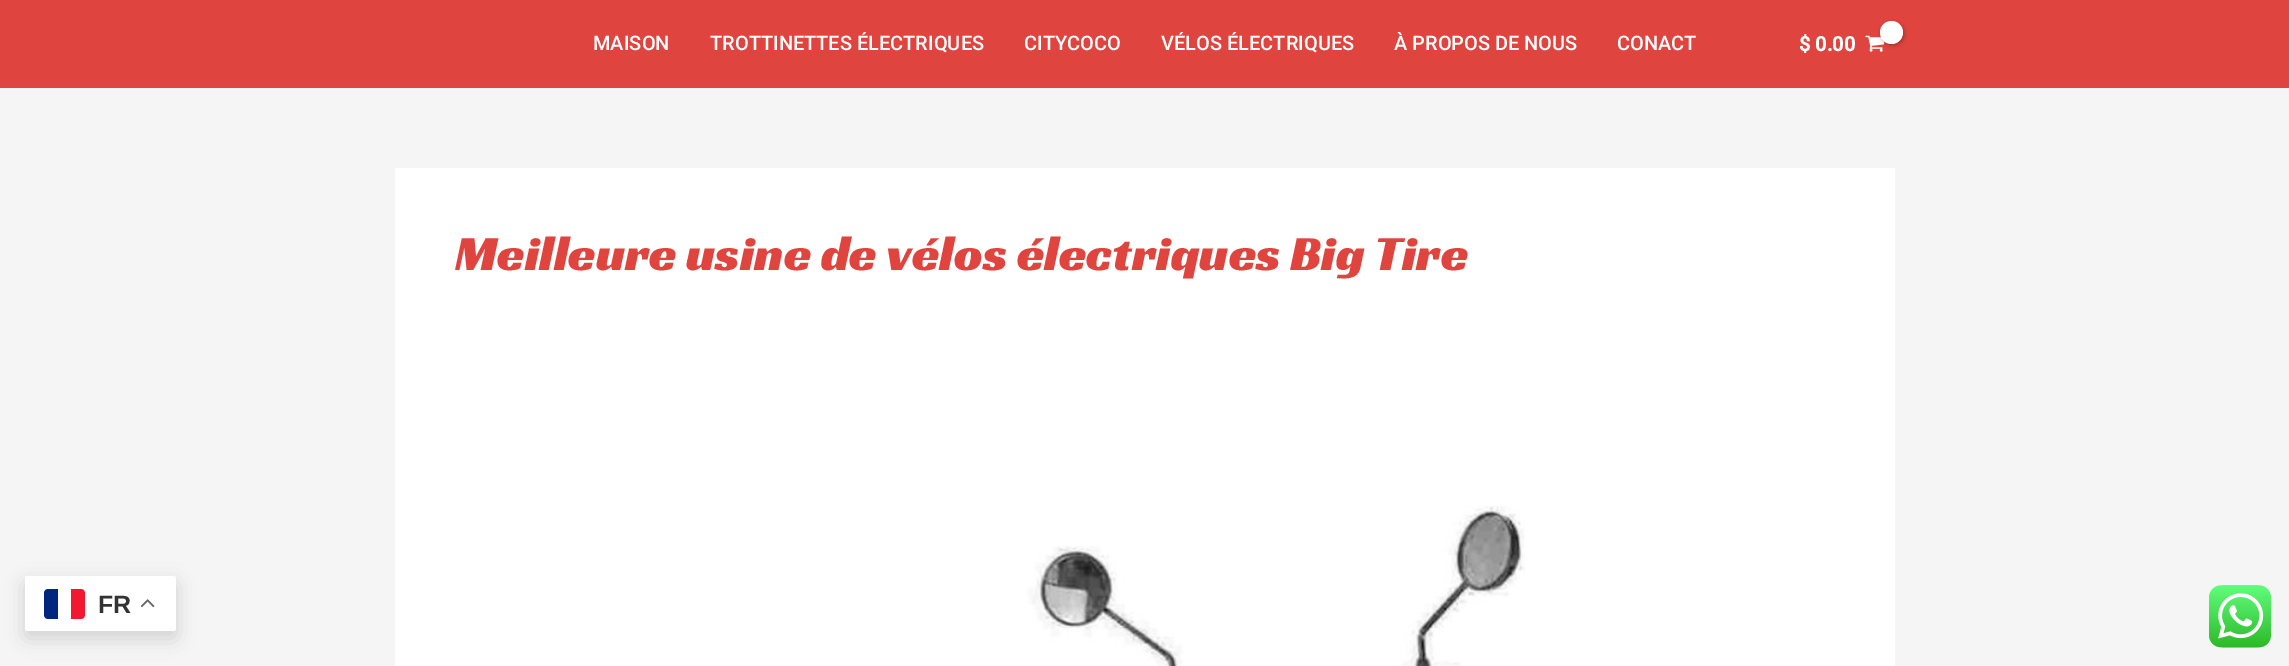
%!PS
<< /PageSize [2289 666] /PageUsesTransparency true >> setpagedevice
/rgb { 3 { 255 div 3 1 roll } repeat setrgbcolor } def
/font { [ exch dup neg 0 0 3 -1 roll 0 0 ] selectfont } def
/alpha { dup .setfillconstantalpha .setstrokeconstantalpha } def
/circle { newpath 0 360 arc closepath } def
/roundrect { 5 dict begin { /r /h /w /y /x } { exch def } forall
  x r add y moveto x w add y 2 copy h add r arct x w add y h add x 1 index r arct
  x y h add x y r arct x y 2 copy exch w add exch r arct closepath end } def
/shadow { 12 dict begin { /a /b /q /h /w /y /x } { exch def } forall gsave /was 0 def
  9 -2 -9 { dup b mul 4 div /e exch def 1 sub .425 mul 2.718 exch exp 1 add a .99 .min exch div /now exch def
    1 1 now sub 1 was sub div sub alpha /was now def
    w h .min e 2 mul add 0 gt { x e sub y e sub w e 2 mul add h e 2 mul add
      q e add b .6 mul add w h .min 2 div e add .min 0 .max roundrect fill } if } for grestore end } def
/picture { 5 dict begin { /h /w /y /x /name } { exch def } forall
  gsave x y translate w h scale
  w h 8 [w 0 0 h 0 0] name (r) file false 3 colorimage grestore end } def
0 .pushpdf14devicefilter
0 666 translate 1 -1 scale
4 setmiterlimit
245 245 245 rgb
0 0 2289 666 rectfill
223 69 62 rgb
0 0 2289 88 rectfill
(img/1.rgb) 1865 35 20 17 picture
0 0 0 rgb
1881 23 23 22 11 2 0.3 shadow
255 255 255 rgb
1891.5 32.5 11.5 circle fill
395 168 1500 498 rectfill
(img/2.rgb) 1027 506 498 160 picture
0 0 0 rgb
25 583 151 55 2.5 9.5 0.15 shadow
255 255 255 rgb
25 576 151 55 2.5 roundrect fill
0 38 127 rgb
48 589 moveto 58 589 lineto 58 619 lineto 48 619 lineto 46 619 44 617 44 615 curveto 44 593 lineto 44 591 46 589 48 589 curveto closepath fill
243 24 48 rgb
71 589 moveto 81 589 lineto 83 589 85 591 85 593 curveto 85 615 lineto 85 617 83 619 81 619 curveto 71 619 lineto closepath fill
(img/3.rgb) 141 599 14 9 picture
(img/4.rgb) 2209 585 62 63 picture
/Roboto-Medium 20 font
255 255 255 rgb
[
  [(MAISON) 593 50]
  [(TROTTINETTES ÉLECTRIQUES) 710 50]
  [(CITYCOCO) 1024 50]
  [(VÉLOS ÉLECTRIQUES) 1161 50]
  [(À PROPOS DE NOUS) 1394 50]
  [(CONACT) 1617 50]
] { aload pop moveto show } forall
/Roboto-Bold 20 font
1799 51 moveto ($ 0.00) show
/RacingSansOne-Regular 50 font
223 69 62 rgb
455 270 moveto (Meilleure usine de vélos électriques Big Tire) show
/LiberationSans-Bold 25 font
51 51 51 rgb
98 613 moveto (FR) show
.poppdf14devicefilter showpage
